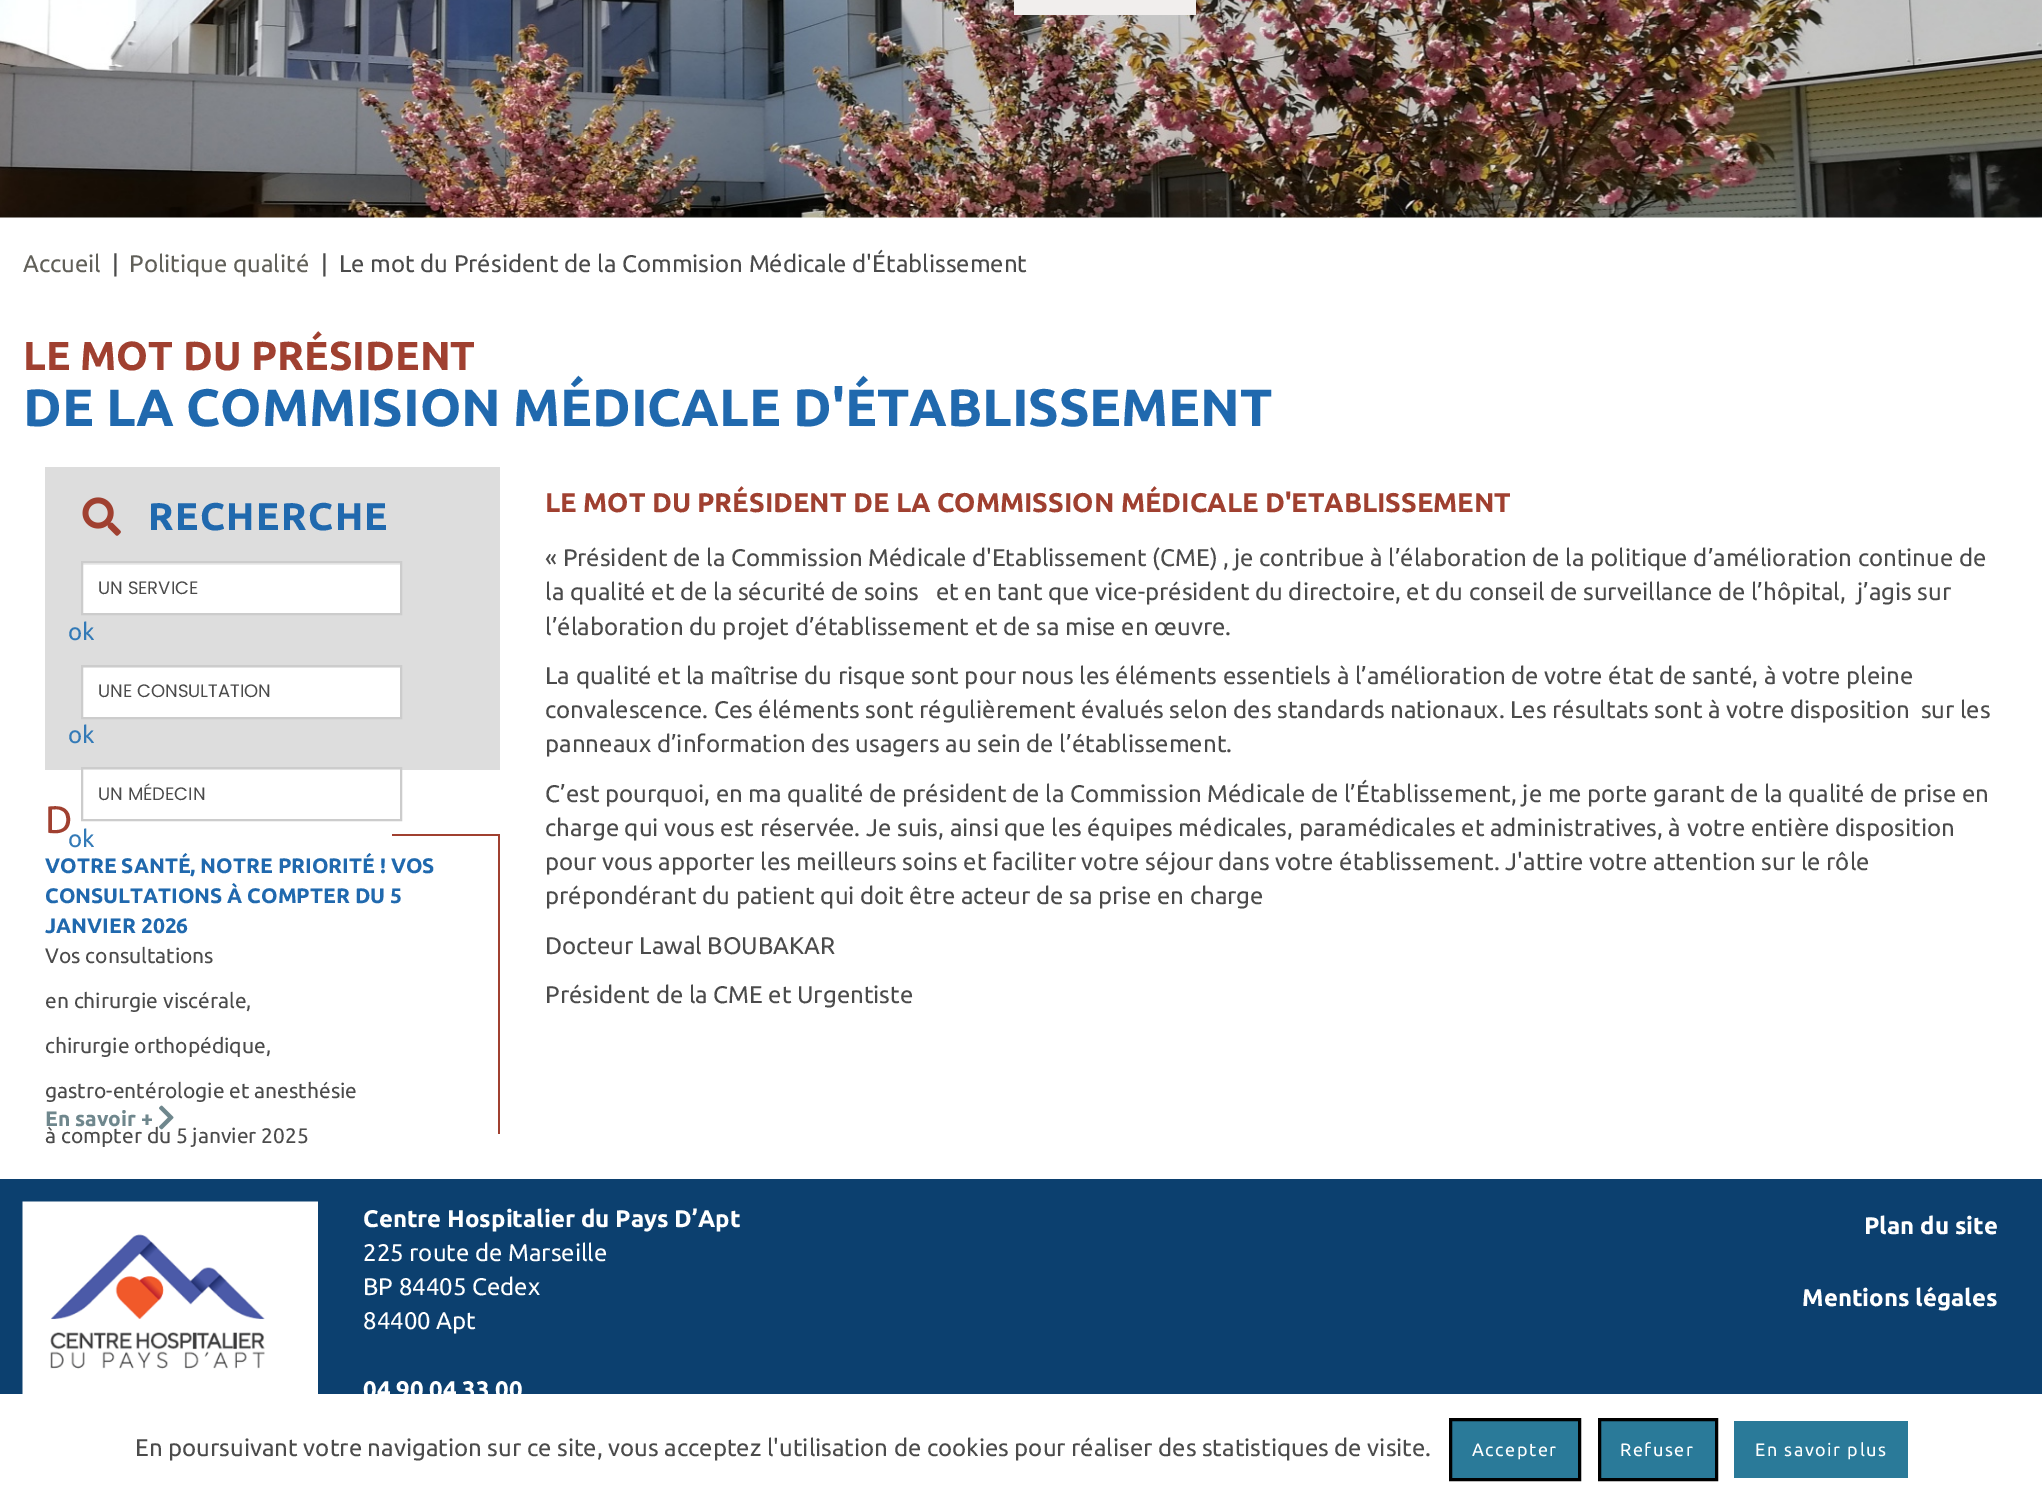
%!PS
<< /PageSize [2042 1504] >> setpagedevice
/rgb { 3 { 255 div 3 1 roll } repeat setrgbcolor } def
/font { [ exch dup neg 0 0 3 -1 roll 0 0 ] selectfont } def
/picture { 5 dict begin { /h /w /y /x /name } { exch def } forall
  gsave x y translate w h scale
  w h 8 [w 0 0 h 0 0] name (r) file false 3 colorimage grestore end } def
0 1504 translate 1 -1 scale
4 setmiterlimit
255 255 255 rgb
0 0 2042 1504 rectfill
(img/1.rgb) 0 0 2042 218 picture
241 238 237 rgb
1014 0 182 15 rectfill
221 221 221 rgb
45 467 455 303 rectfill
(img/2.rgb) 82 497 39 39 picture
255 255 255 rgb
83 565 317 48 rectfill
236 236 236 rgb
83 563 318 2 rectfill
204 204 204 rgb
2 setlinewidth
82 562 319 52 rectstroke
255 255 255 rgb
83 668 317 49 rectfill
236 236 236 rgb
83 667 318 1 rectfill
204 204 204 rgb
82 666 319 52 rectstroke
236 236 236 rgb
83 769 318 1 rectfill
204 204 204 rgb
82 768 319 52 rectstroke
[
  [392 834 108 2 160 64 48]
  [498 834 2 300 160 64 48]
  [0 1179 2042 215 12 64 111]
] { aload pop rgb rectfill } forall
(img/4.rgb) 22 1201 296 193 picture
42 122 153 rgb
1450.5 1419.5 moveto 1579.5 1419.5 lineto 1579.5 1479.5 lineto 1450.5 1479.5 lineto closepath gsave fill grestore
0 0 0 rgb
3 setlinewidth
stroke
42 122 153 rgb
1599.5 1419.5 moveto 1716.5 1419.5 lineto 1716.5 1479.5 lineto 1599.5 1479.5 lineto closepath gsave fill grestore
0 0 0 rgb
stroke
42 122 153 rgb
1734 1421 174 57 rectfill
/Ubuntu-Regular 24 font
97 96 89 rgb
23 272 moveto (Accueil) show
75 75 75 rgb
112 272 moveto (|) show
97 96 89 rgb
129 272 moveto (Politique qualité) show
75 75 75 rgb
321 272 moveto (|  Le mot du Président de la Commision Médicale d'Établissement) show
/Ubuntu-Bold 40.5 font
160 64 48 rgb
23 370 moveto (LE MOT DU PRÉSIDENT) show
/Ubuntu-Bold 52.5 font
32 105 174 rgb
23 426 moveto (DE LA COMMISION MÉDICALE D'ÉTABLISSEMENT) show
/Ubuntu-Bold 38.5 font
148 530 moveto 1.5 0 (RECHERCHE) ashow
/Poppins-Regular 18 font
75 75 75 rgb
98 594 moveto (UN SERVICE) show
/Ubuntu-Regular 24 font
51 122 183 rgb
68 640 moveto (ok) show
/Poppins-Regular 18 font
75 75 75 rgb
98 697 moveto (UNE CONSULTATION) show
/Ubuntu-Regular 24 font
51 122 183 rgb
68 743 moveto (ok) show
/Poppins-Regular 18 font
75 75 75 rgb
98 800 moveto (UN MÉDECIN) show
/Ubuntu-Regular 24 font
51 122 183 rgb
68 847 moveto (ok) show
/Ubuntu-Regular 38.5 font
160 64 48 rgb
45 833 moveto 1.5 0 (D) ashow
/Ubuntu-Bold 21 font
32 105 174 rgb
[
  [(VOTRE SANTÉ, NOTRE PRIORITÉ ! VOS) 45 873]
  [(CONSULTATIONS À COMPTER DU 5) 45 903]
  [(JANVIER 2026) 45 933]
] { aload pop moveto show } forall
/Ubuntu-Regular 21 font
75 75 75 rgb
[
  [(Vos consultations) 45 963]
  [(en chirurgie viscérale,) 45 1008]
  [(chirurgie orthopédique,) 45 1053]
  [(gastro-entérologie et anesthésie) 45 1098]
  [(à compter du 5 janvier 2025) 45 1143]
] { aload pop moveto show } forall
/Ubuntu-Bold 21 font
111 135 141 rgb
45 1126 moveto (En savoir +) show
(img/3.rgb) 159 1105 15 25 picture
/Ubuntu-Bold 27 font
160 64 48 rgb
545 512 moveto (LE MOT DU PRÉSIDENT DE LA COMMISSION MÉDICALE D'ETABLISSEMENT) show
/Ubuntu-Regular 24 font
75 75 75 rgb
[
  [(« Président de la Commission Médicale d'Etablissement \(CME\) , je contribue à l’élaboration de la politique d’amélioration continue de) 545 566]
  [(la qualité et de la sécurité de soins   et en tant que vice-président du directoire, et du conseil de surveillance de l’hôpital,  j’agis sur) 545 600]
  [(l’élaboration du projet d’établissement et de sa mise en œuvre.) 545 635]
  [(La qualité et la maîtrise du risque sont pour nous les éléments essentiels à l’amélioration de votre état de santé, à votre pleine) 545 684]
  [(convalescence. Ces éléments sont régulièrement évalués selon des standards nationaux. Les résultats sont à votre disposition  sur les) 545 718]
  [(panneaux d’information des usagers au sein de l’établissement.) 545 752]
  [(C’est pourquoi, en ma qualité de président de la Commission Médicale de l’Établissement, je me porte garant de la qualité de prise en) 545 802]
  [(charge qui vous est réservée. Je suis, ainsi que les équipes médicales, paramédicales et administratives, à votre entière disposition) 545 836]
  [(pour vous apporter les meilleurs soins et faciliter votre séjour dans votre établissement. J'attire votre attention sur le rôle) 545 870]
  [(prépondérant du patient qui doit être acteur de sa prise en charge) 545 904]
  [(Docteur Lawal BOUBAKAR) 545 954]
  [(Président de la CME et Urgentiste) 545 1003]
] { aload pop moveto show } forall
/Ubuntu-Bold 24 font
255 255 255 rgb
363 1227 moveto (Centre Hospitalier du Pays D’Apt) show
/Ubuntu-Regular 24 font
[
  [(225 route de Marseille) 363 1261]
  [(BP 84405 Cedex) 363 1295]
  [(84400 Apt) 363 1329]
] { aload pop moveto show } forall
/Ubuntu-Bold 24 font
[
  [(04 90 04 33 00) 363 1398]
  [(Plan du site) 1864 1234]
  [(Mentions légales) 1802 1306]
] { aload pop moveto show } forall
/Ubuntu-Regular 24 font
75 75 75 rgb
135 1456 moveto (En poursuivant votre navigation sur ce site, vous acceptez l'utilisation de cookies pour réaliser des statistiques de visite.) show
/Ubuntu-Regular 18 font
255 255 255 rgb
1472 1456 moveto 1.5 0 (Accepter) ashow
1620 1456 moveto 1.5 0 (Refuser) ashow
1755 1456 moveto 1.5 0 (En savoir plus) ashow
showpage
